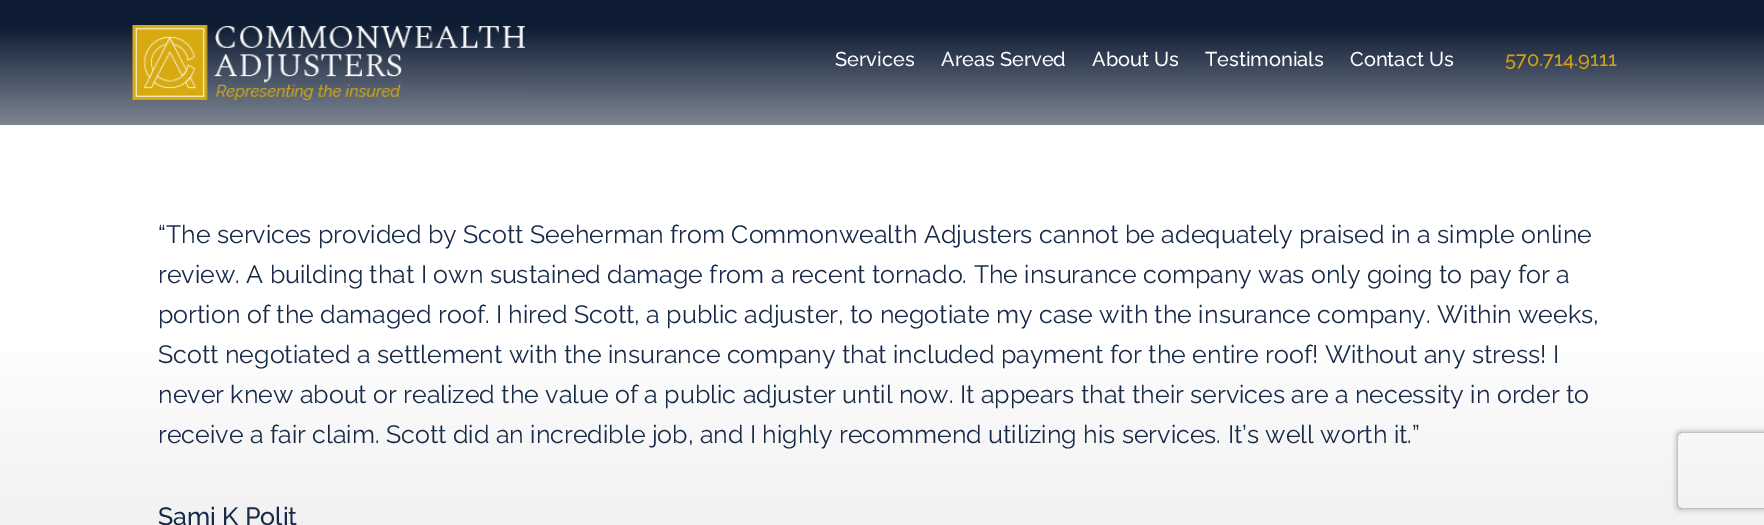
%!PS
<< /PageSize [1764 525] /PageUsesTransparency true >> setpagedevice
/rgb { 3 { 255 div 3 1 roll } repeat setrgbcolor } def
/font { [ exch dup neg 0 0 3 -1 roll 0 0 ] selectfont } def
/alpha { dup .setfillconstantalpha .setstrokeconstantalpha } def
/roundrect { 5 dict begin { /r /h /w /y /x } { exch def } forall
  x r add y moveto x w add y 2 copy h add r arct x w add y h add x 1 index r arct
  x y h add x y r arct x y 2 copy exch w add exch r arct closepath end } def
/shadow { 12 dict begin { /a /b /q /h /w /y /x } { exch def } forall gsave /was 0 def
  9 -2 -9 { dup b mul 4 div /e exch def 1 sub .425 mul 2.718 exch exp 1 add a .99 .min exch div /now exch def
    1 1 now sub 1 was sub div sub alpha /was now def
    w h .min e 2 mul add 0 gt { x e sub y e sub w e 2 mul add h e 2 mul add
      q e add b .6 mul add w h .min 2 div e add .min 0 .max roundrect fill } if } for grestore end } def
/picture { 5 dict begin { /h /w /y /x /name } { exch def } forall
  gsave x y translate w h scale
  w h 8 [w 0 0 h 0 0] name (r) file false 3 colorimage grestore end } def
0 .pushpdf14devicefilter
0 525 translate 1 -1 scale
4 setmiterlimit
255 255 255 rgb
0 0 1764 525 rectfill
gsave 0 0 moveto 1764 0 lineto 1764 125 lineto 0 125 lineto closepath clip newpath
<< /ShadingType 2 /ColorSpace /DeviceRGB /Coords [883 0 883 125] /Extend [true true] /Function << /FunctionType 3 /Domain [0 1] /Functions [<< /FunctionType 2 /Domain [0 1] /C0 [0.055 0.114 0.204] /C1 [0.055 0.114 0.204] /N 1 >> << /FunctionType 2 /Domain [0 1] /C0 [0.055 0.114 0.204] /C1 [0.49 0.522 0.573] /N 1 >>] /Bounds [0.21] /Encode [0 1 0 1] >> >> shfill grestore
(img/1.rgb) 132 25 393 75 picture
gsave 0 353 moveto 1764 353 lineto 1764 525 lineto 0 525 lineto closepath clip newpath
<< /ShadingType 2 /ColorSpace /DeviceRGB /Coords [883 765 883 1.2] /Extend [true true] /Function << /FunctionType 3 /Domain [0 1] /Functions [<< /FunctionType 2 /Domain [0 1] /C0 [0.886 0.886 0.886] /C1 [1 1 1] /N 1 >> << /FunctionType 2 /Domain [0 1] /C0 [1 1 1] /C1 [1 1 1] /N 1 >>] /Bounds [0.59] /Encode [0 1 0 1] >> >> shfill grestore
gsave
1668 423 moveto 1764 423 lineto 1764 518 lineto 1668 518 lineto closepath 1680.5 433 moveto 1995.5 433 lineto 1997 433 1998 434 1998 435.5 curveto 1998 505.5 lineto 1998 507 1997 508 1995.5 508 curveto 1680.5 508 lineto 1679 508 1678 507 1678 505.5 curveto 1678 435.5 lineto 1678 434 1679 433 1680.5 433 curveto closepath eoclip newpath
128 128 128 rgb
1678 433 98 75 2.5 3 1 shadow
grestore
/Raleway-Medium 20 font
[
  [(Services) 835 66]
  [(Areas Served) 941 66]
  [(About Us) 1092 66]
  [(Testimonials) 1205 66]
  [(Contact Us) 1350 66]
] { aload pop moveto show } forall
210 160 17 rgb
1505 66 moveto (570.714.9111) show
/Raleway-Regular 25 font
23 42 72 rgb
[
  [(“The services provided by Scott Seeherman from Commonwealth Adjusters cannot be adequately praised in a simple online) 158 243]
  [(review. A building that I own sustained damage from a recent tornado. The insurance company was only going to pay for a) 158 283]
  [(portion of the damaged roof. I hired Scott, a public adjuster, to negotiate my case with the insurance company. Within weeks,) 158 323]
  [(Scott negotiated a settlement with the insurance company that included payment for the entire roof! Without any stress! I) 158 363]
  [(never knew about or realized the value of a public adjuster until now. It appears that their services are a necessity in order to) 158 403]
  [(receive a fair claim. Scott did an incredible job, and I highly recommend utilizing his services. It’s well worth it.”) 158 443]
] { aload pop moveto show } forall
/Raleway-Medium 25 font
158 525 moveto (Sami K Polit) show
.poppdf14devicefilter showpage
